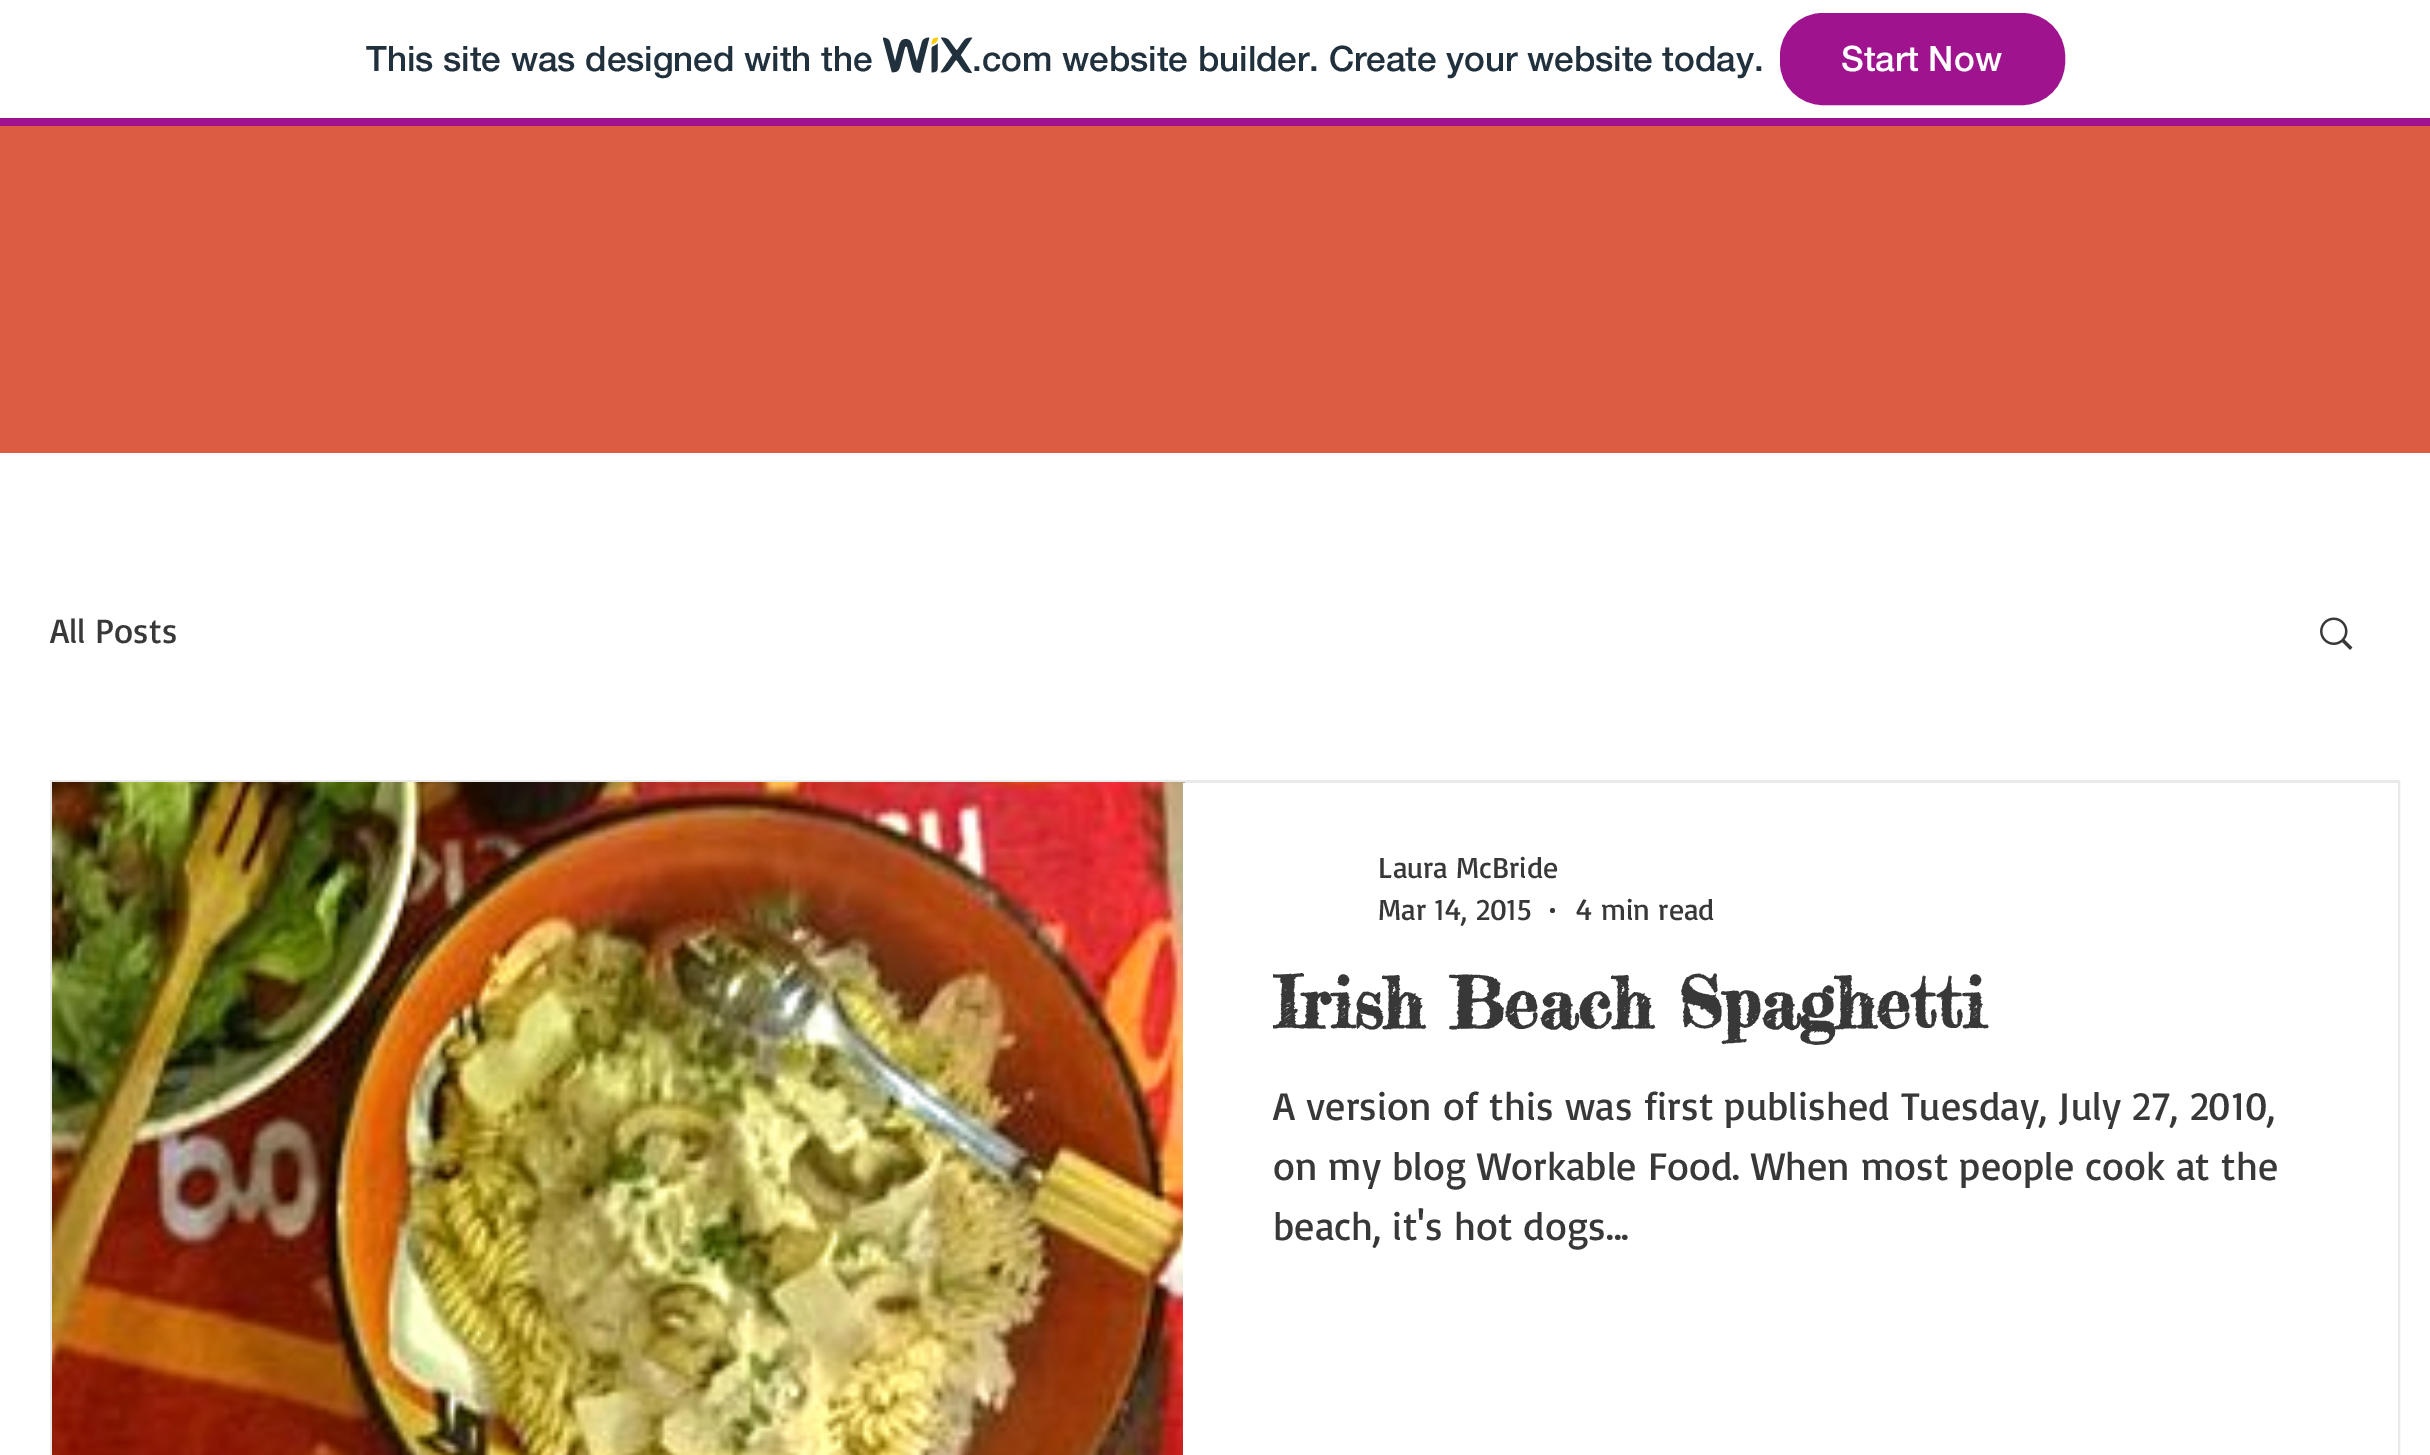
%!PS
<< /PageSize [2430 1455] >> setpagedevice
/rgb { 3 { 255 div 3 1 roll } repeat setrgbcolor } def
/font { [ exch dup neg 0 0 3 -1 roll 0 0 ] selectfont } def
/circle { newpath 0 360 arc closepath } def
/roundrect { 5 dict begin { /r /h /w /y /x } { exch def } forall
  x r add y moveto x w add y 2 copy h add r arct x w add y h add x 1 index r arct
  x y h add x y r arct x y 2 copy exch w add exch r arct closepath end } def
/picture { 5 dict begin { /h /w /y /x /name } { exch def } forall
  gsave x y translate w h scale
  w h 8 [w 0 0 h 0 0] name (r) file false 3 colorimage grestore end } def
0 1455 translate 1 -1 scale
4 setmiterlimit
255 255 255 rgb
0 0 2430 1455 rectfill
160 19 142 rgb
0 118 2430 8 rectfill
(img/1.rgb) 883 37 90 36 picture
1781.5 14.5 282 89 41.5 roundrect gsave fill grestore
3 setlinewidth
stroke
219 91 67 rgb
0 126 2430 327 rectfill
(img/2.rgb) 2320 617 33 33 picture
234 234 234 rgb
51.5 781.5 2347 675 rectstroke
(img/3.rgb) 52 782 1133 673 picture
255 255 255 rgb
1183 783 1215 672 rectfill
57 56 56 rgb
1552.5 910.5 2.5 circle fill
/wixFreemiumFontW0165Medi-Medium 35 font
32 48 60 rgb
366 71 moveto (This site was designed with the) show
972 71 moveto (.com website builder. Create your website today.) show
255 255 255 rgb
1841 71 moveto (Start Now) show
/Basic-Regular 35 font
57 56 56 rgb
50 643 moveto (All Posts) show
/Basic-Regular 30 font
[
  [(Laura McBride) 1378 878]
  [(Mar 14, 2015) 1378 920]
  [(4 min read) 1576 920]
] { aload pop moveto show } forall
gsave
1273 960 1035 85 rectclip
/FrederickatheGreat-Bold 70 font
1273 1028 moveto (Irish Beach Spaghetti) show
grestore
/Basic-Regular 40 font
[
  [(A version of this was first published Tuesday, July 27, 2010,) 1273 1120]
  [(on my blog Workable Food. When most people cook at the) 1273 1180]
  [(beach, it's hot dogs...) 1273 1240]
] { aload pop moveto show } forall
showpage
